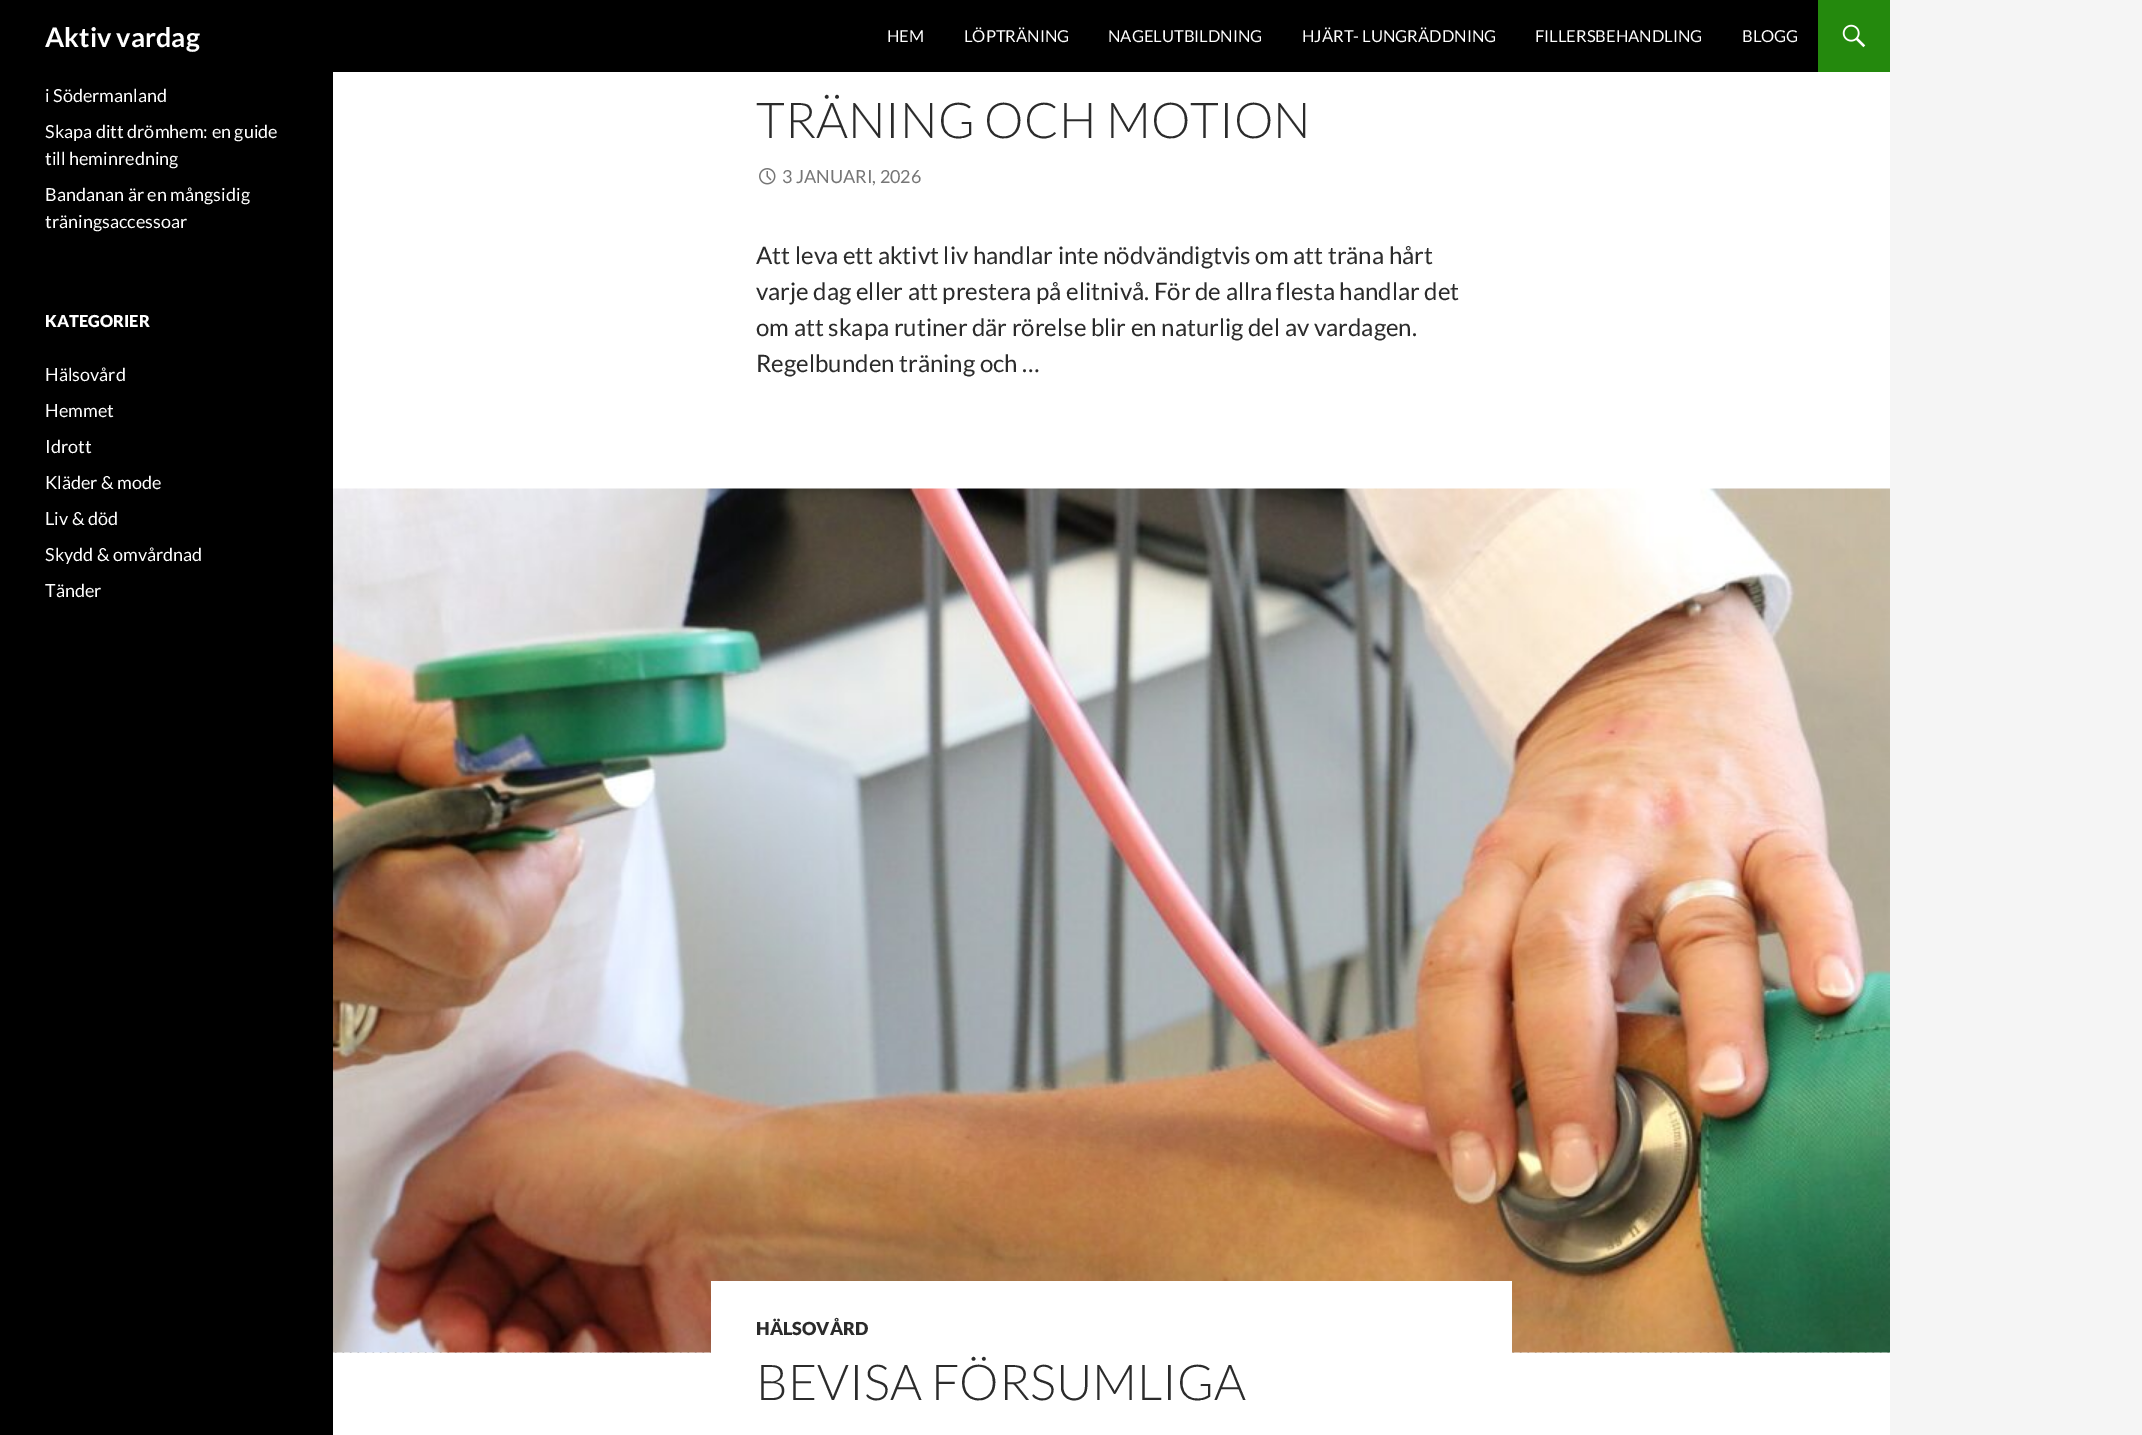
%!PS
<< /PageSize [2142 1435] >> setpagedevice
/rgb { 3 { 255 div 3 1 roll } repeat setrgbcolor } def
/font { [ exch dup neg 0 0 3 -1 roll 0 0 ] selectfont } def
/picture { 5 dict begin { /h /w /y /x /name } { exch def } forall
  gsave x y translate w h scale
  w h 8 [w 0 0 h 0 0] name (r) file false 3 colorimage grestore end } def
0 1435 translate 1 -1 scale
4 setmiterlimit
245 245 245 rgb
0 0 2142 1435 rectfill
[
  [333 72 1557 1363 255 255 255]
  [0 0 1818 72 0 0 0]
  [1818 0 72 72 36 137 13]
] { aload pop rgb rectfill } forall
(img/1.rgb) 1842 24 24 24 picture
0 0 0 rgb
0 72 333 1363 rectfill
(img/2.rgb) 759 168 17 17 picture
178 178 178 rgb
334 1352 1556 1 rectfill
(img/3.rgb) 333 1352 1557 1 picture
(img/4.rgb) 333 488 1557 865 picture
255 255 255 rgb
711 1281 801 72 rectfill
/Lato-Bold 27 font
45 47 moveto (Aktiv vardag) show
/Lato-Regular 16.5 font
[
  [(HEM) 887 42]
  [(LÖPTRÄNING) 964 42]
  [(NAGELUTBILDNING) 1108 42]
  [(HJÄRT- LUNGRÄDDNING) 1302 42]
  [(FILLERSBEHANDLING) 1535 42]
  [(BLOGG) 1742 42]
] { aload pop moveto show } forall
/Lato-Regular 18 font
[
  [(i Södermanland) 45 102]
  [(Skapa ditt drömhem: en guide) 45 138]
  [(till heminredning) 45 165]
  [(Bandanan är en mångsidig) 45 201]
  [(träningsaccessoar) 45 228]
] { aload pop moveto show } forall
/Lato-Black 16.5 font
45 327 moveto (KATEGORIER) show
/Lato-Regular 18 font
[
  [(Hälsovård) 45 381]
  [(Hemmet) 45 417]
  [(Idrott) 45 453]
  [(Kläder & mode) 45 489]
  [(Liv & död) 45 525]
  [(Skydd & omvårdnad) 45 561]
  [(Tänder) 45 597]
] { aload pop moveto show } forall
/Lato-Light 49.5 font
43 43 43 rgb
756 138 moveto (TRÄNING OCH MOTION) show
/Lato-Regular 18 font
118 118 118 rgb
782 183 moveto (3 JANUARI, 2026) show
/Lato-Regular 24 font
43 43 43 rgb
[
  [(Att leva ett aktivt liv handlar inte nödvändigtvis om att träna hårt) 756 264]
  [(varje dag eller att prestera på elitnivå. För de allra flesta handlar det) 756 300]
  [(om att skapa rutiner där rörelse blir en naturlig del av vardagen.) 756 336]
  [(Regelbunden träning och …) 756 372]
] { aload pop moveto show } forall
/Lato-Black 18 font
756 1335 moveto (HÄLSOVÅRD) show
/Lato-Light 49.5 font
756 1400 moveto (BEVISA FÖRSUMLIGA) show
showpage
